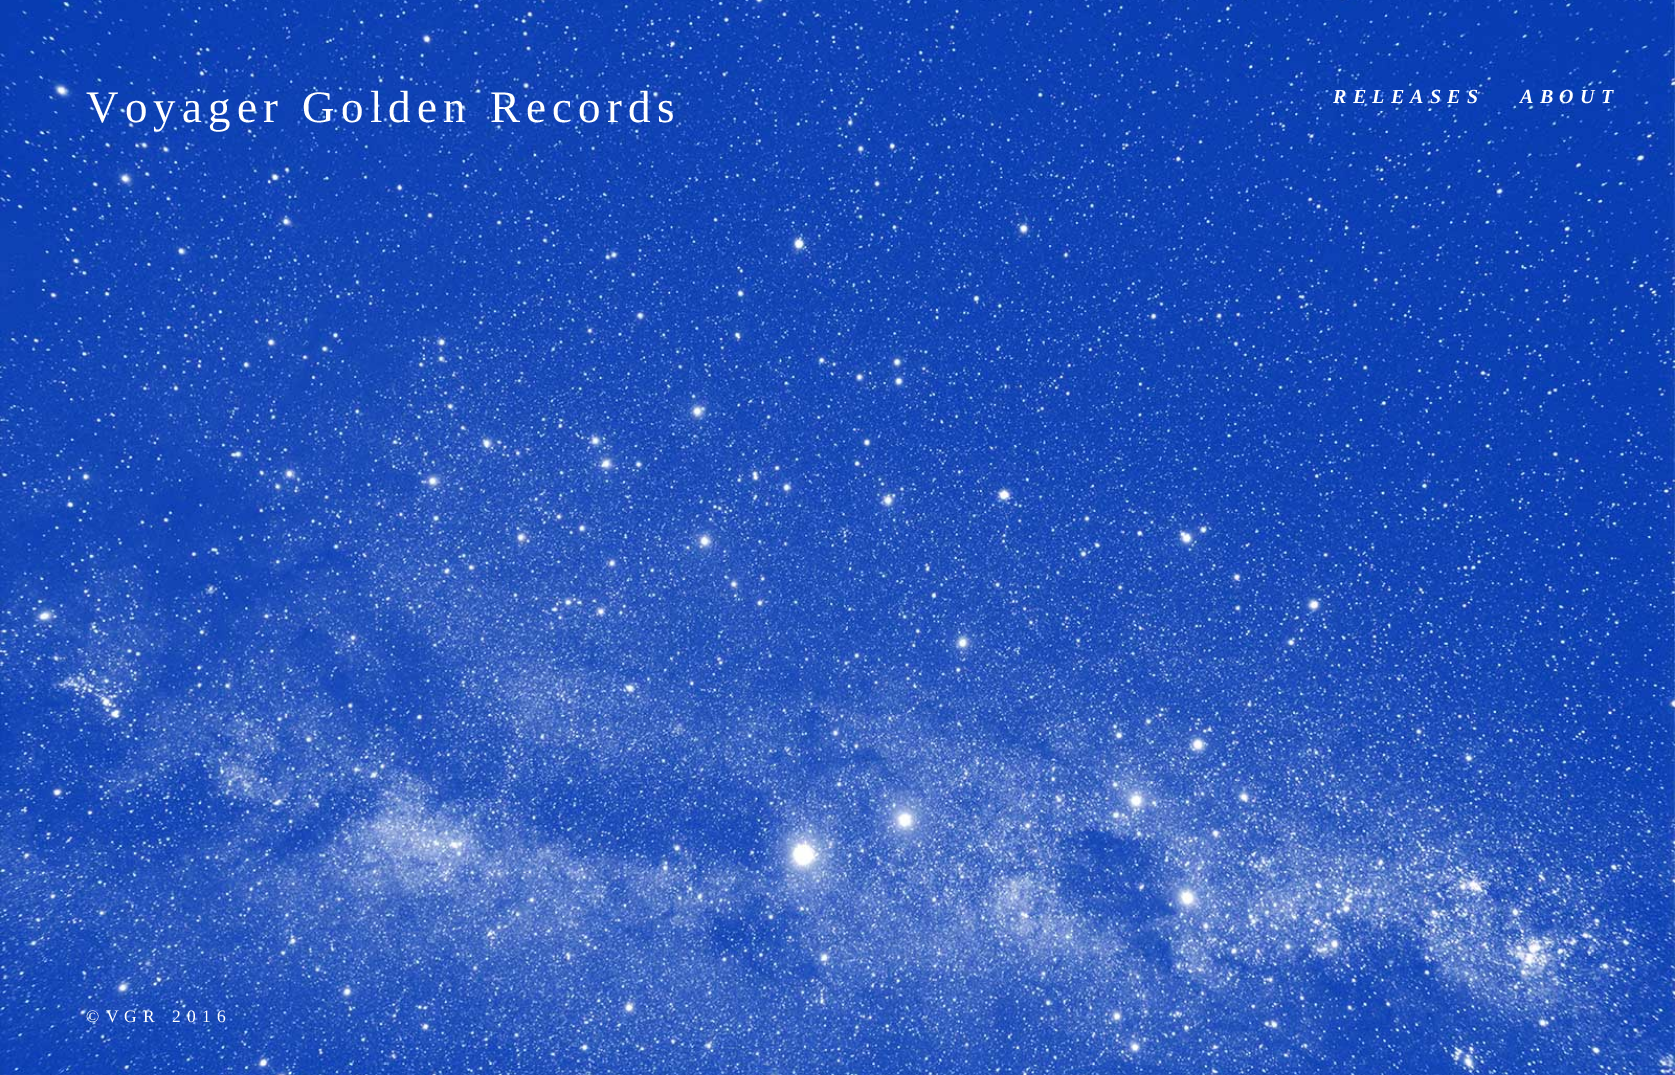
%!PS
<< /PageSize [1675 1075] >> setpagedevice
/rgb { 3 { 255 div 3 1 roll } repeat setrgbcolor } def
/font { [ exch dup neg 0 0 3 -1 roll 0 0 ] selectfont } def
/picture { 5 dict begin { /h /w /y /x /name } { exch def } forall
  gsave x y translate w h scale
  w h 8 [w 0 0 h 0 0] name (r) file false 3 colorimage grestore end } def
0 1075 translate 1 -1 scale
4 setmiterlimit
255 255 255 rgb
0 0 1675 1075 rectfill
(img/1.rgb) 0 0 1675 1075 picture
(img/2.rgb) 0 1074 1675 1 picture
/LiberationSerif-Regular 45 font
86 122 moveto 6.25 0 (Voyager Golden Records) ashow
/LiberationSerif-BoldItalic 20 font
1333 103 moveto 6.25 0 (RELEASES) ashow
1520 103 moveto 6.25 0 (ABOUT) ashow
/LiberationSerif-Regular 17.5 font
86 1022 moveto 6.25 0 (©VGR 2016) ashow
showpage
